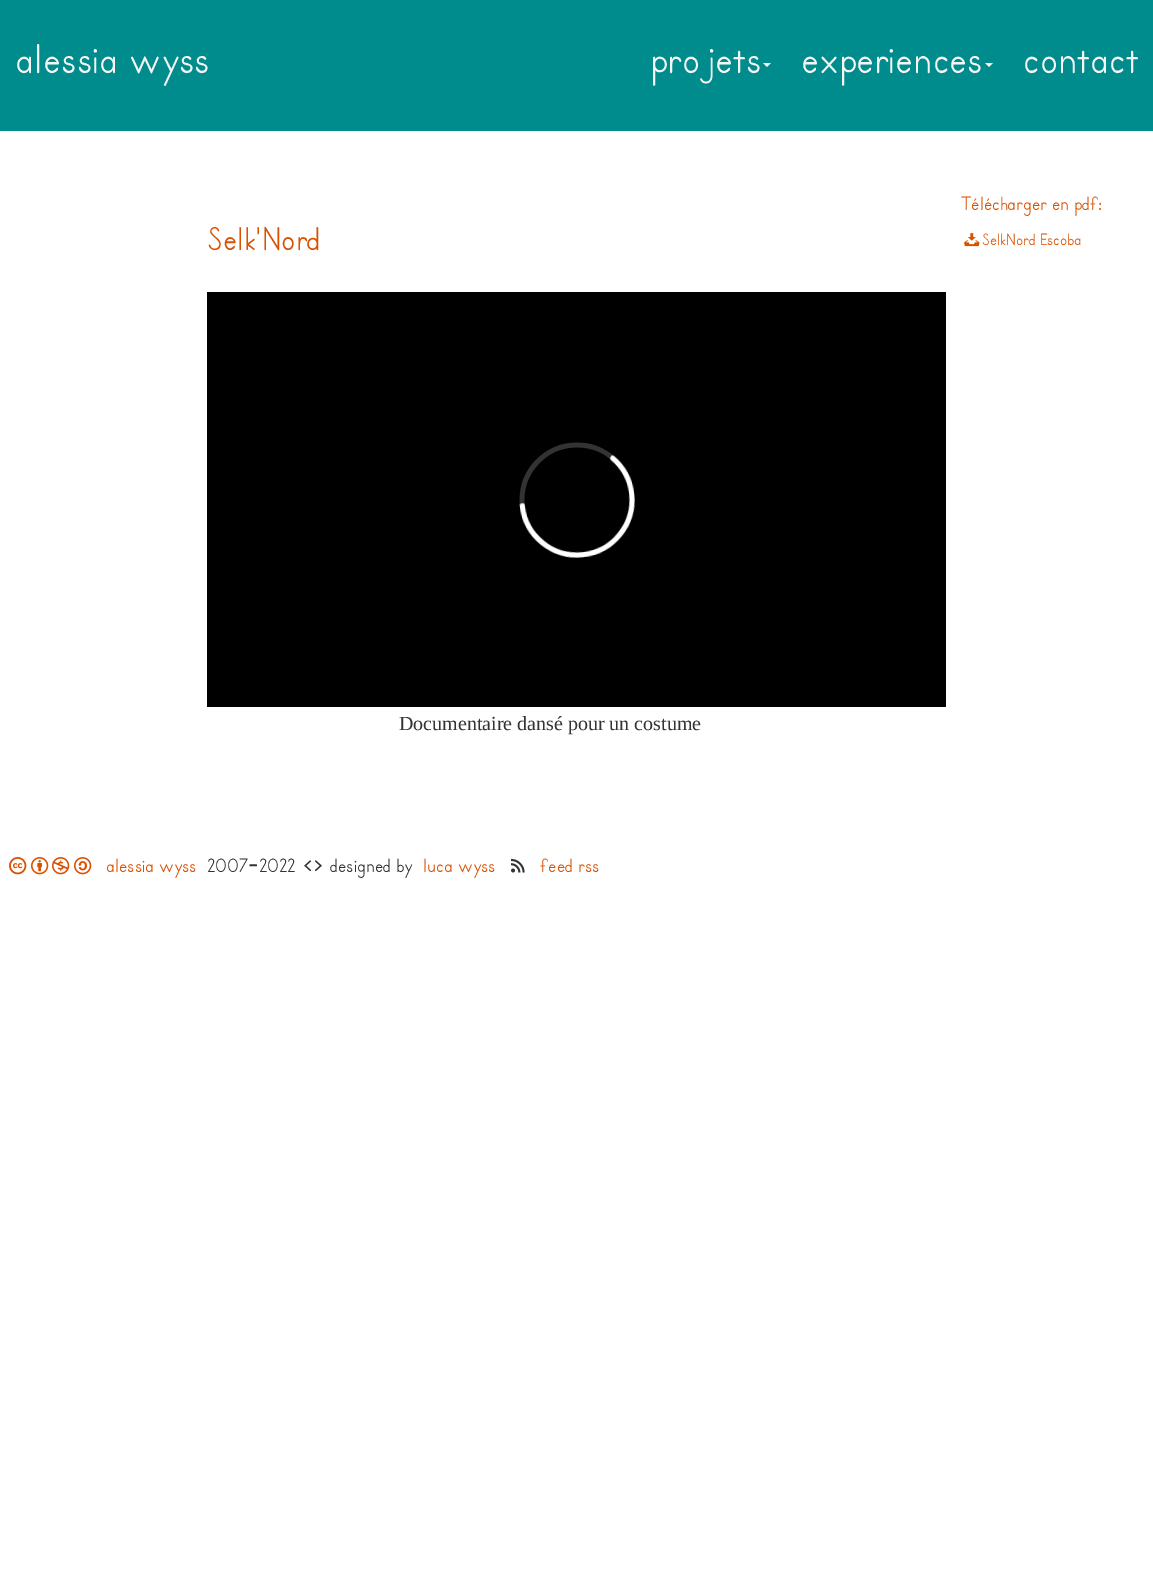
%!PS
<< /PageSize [1153 1573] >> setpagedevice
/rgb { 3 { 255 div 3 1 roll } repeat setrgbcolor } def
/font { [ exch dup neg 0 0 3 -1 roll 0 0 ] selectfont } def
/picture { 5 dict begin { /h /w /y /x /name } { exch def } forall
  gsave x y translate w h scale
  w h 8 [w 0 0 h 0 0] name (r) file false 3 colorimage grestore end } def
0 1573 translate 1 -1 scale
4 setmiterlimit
255 255 255 rgb
0 0 1153 1573 rectfill
0 140 140 rgb
0 0 1153 131 rectfill
245 245 245 rgb
763 63 moveto 771 63 lineto 767 67 lineto closepath fill
985 63 moveto 993 63 lineto 989 67 lineto closepath fill
(img/1.rgb) 964 233 16 14 picture
(img/2.rgb) 207 292 739 415 picture
(img/3.rgb) 9 857 18 18 picture
(img/4.rgb) 31 857 18 18 picture
(img/5.rgb) 52 857 18 18 picture
(img/6.rgb) 74 857 18 18 picture
(img/7.rgb) 304 860 18 12 picture
(img/8.rgb) 511 858 14 15 picture
/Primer-Regular 43 font
[
  [(alessia wyss) 15 73]
  [(projets) 650 73]
  [(experiences) 801 73]
  [(contact) 1023 73]
] { aload pop moveto show } forall
/Primer-Regular 34 font
217 80 0 rgb
207 250 moveto (Selk'Nord) show
/Primer-Regular 20 font
961 210 moveto (Télécharger en pdf:) show
/Primer-Regular 17 font
982 245 moveto (SelkNord Escoba) show
/LiberationSerif-Regular 20 font
51 51 51 rgb
399 730 moveto (Documentaire dansé pour un costume) show
/Primer-Regular 20 font
217 80 0 rgb
106 872 moveto (alessia wyss) show
51 51 51 rgb
207 872 moveto (2007-2022) show
330 872 moveto (designed by) show
217 80 0 rgb
423 872 moveto (luca wyss) show
540 872 moveto (feed rss) show
showpage
